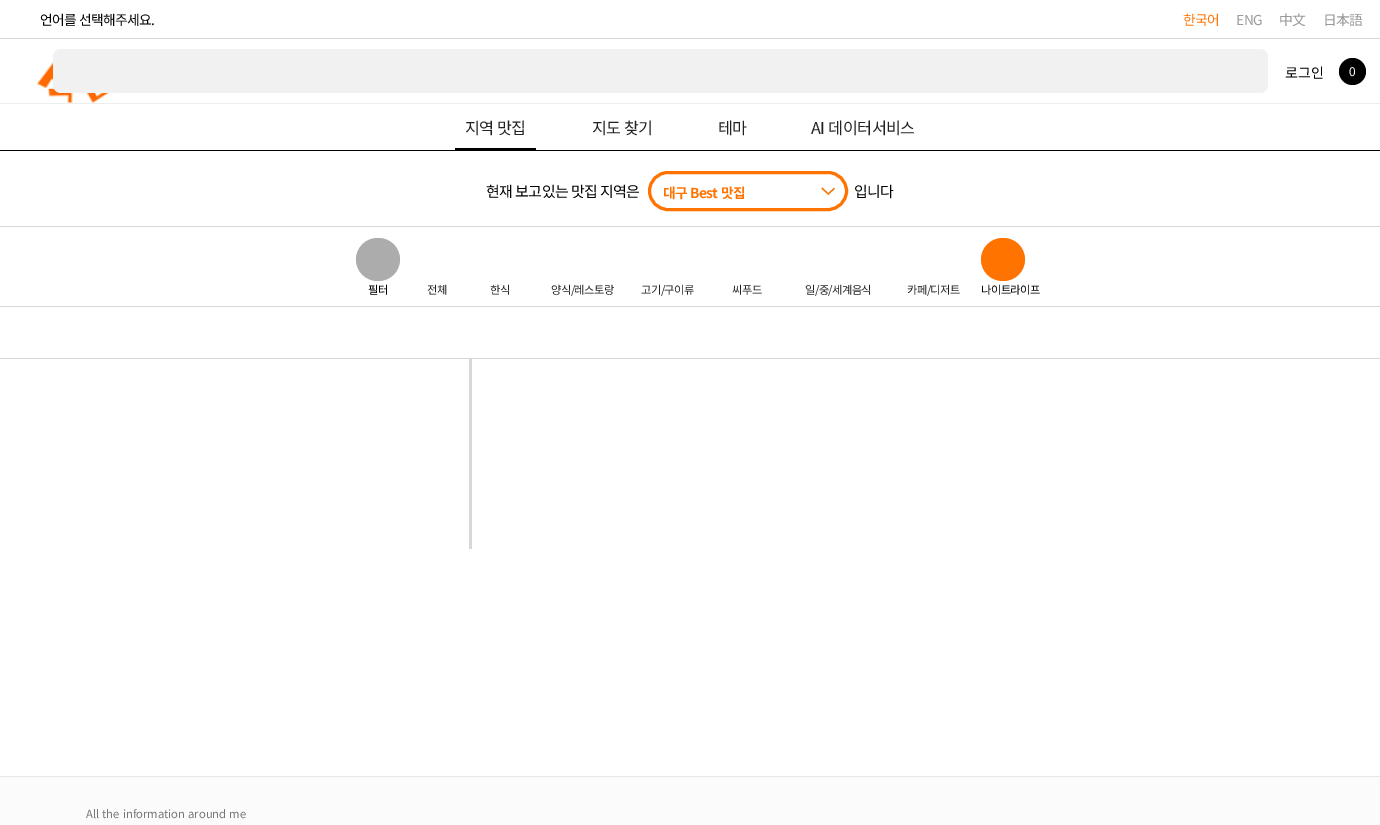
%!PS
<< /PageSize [1380 825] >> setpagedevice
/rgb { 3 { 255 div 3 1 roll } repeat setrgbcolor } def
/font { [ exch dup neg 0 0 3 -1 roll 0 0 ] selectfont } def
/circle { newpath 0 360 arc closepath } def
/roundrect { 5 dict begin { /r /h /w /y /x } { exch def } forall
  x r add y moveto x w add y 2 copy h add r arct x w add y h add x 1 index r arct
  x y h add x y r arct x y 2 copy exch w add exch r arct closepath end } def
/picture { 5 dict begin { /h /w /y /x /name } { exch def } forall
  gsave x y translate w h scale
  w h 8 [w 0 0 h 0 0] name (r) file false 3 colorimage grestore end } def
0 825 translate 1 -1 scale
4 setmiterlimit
255 255 255 rgb
0 0 1380 825 rectfill
[
  [0 150 1380 1 0 0 0]
  [0 38 1380 1 215 215 215]
  [0 103 1380 1 237 237 237]
] { aload pop rgb rectfill } forall
(img/1.rgb) 37 62 243 41 picture
241 241 241 rgb
53 49 1215 44 8 roundrect fill
0 0 0 rgb
1352.5 71.5 13.5 circle fill
455 148 81 2 rectfill
(img/2.rgb) 821 187 14 8 picture
255 116 0 rgb
3 setlinewidth
649.5 172.5 197 37 18.5 roundrect stroke
215 215 215 rgb
0 226 1380 1 rectfill
172 172 172 rgb
356 238 44 43 21.5 roundrect fill
255 116 0 rgb
981 238 44 43 21.5 roundrect fill
[
  [0 306 1380 1 215 215 215]
  [0 358 1380 1 215 215 215]
  [469 359 3 190 215 215 215]
  [0 777 1380 48 251 251 251]
  [0 776 1380 1 231 231 231]
] { aload pop rgb rectfill } forall
/NotoSansKR-Regular 13.75 font
0 0 0 rgb
40 25 moveto -0.6 0 (언어를 선택해주세요.) ashow
255 116 0 rgb
1183 25 moveto -0.6 0 (한국어) ashow
/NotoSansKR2-Regular 13.75 font
153 153 153 rgb
1236 25 moveto -0.6 0 (ENG) ashow
1279 25 moveto -0.6 0 (中文) ashow
1323 25 moveto -0.6 0 (日本語) ashow
/NotoSansKR-Regular 14 font
0 0 0 rgb
1285 78 moveto (로그인) show
/NotoSansKR2-Regular 12 font
255 255 255 rgb
1349 76 moveto (0) show
/NotoSansKR-Regular 16.25 font
34 34 34 rgb
465 134 moveto -0.6 0 (지역 맛집) ashow
592 134 moveto -0.6 0 (지도 찾기) ashow
718 134 moveto -0.6 0 (테마) ashow
811 134 moveto 1 0 32 -0.6 0 (AI 데이터서비스) awidthshow
/NotoSansKR-Regular 15 font
0 0 0 rgb
486 197 moveto -0.6 0 (현재 보고있는 맛집 지역은) ashow
/NotoSansKR-Bold 13.75 font
255 116 0 rgb
663 198 moveto -0.6 0 (대구) ashow
/NotoSansKR2-Bold 13.75 font
690 198 moveto -0.6 0 (Best) ashow
/NotoSansKR-Bold 13.75 font
721 198 moveto -0.6 0 (맛집) ashow
/NotoSansKR-Regular 15 font
0 0 0 rgb
854 197 moveto -0.6 0 (입니다) ashow
/NotoSansKR-Regular 11.25 font
368 294 moveto -0.6 0 (필터) ashow
34 34 34 rgb
427 294 moveto -0.6 0 (전체) ashow
490 294 moveto -0.6 0 (한식) ashow
551 294 moveto -0.6 0 (양식/레스토랑) ashow
641 294 moveto -0.6 0 (고기/구이류) ashow
732 294 moveto -0.6 0 (씨푸드) ashow
805 294 moveto -0.6 0 (일/중/세계음식) ashow
907 294 moveto -0.6 0 (카페/디저트) ashow
0 0 0 rgb
981 294 moveto -0.6 0 (나이트라이프) ashow
/NotoSansKR2-Regular 11.25 font
119 119 119 rgb
86 818 moveto 0.5 0 32 (All the information around me) widthshow
showpage
